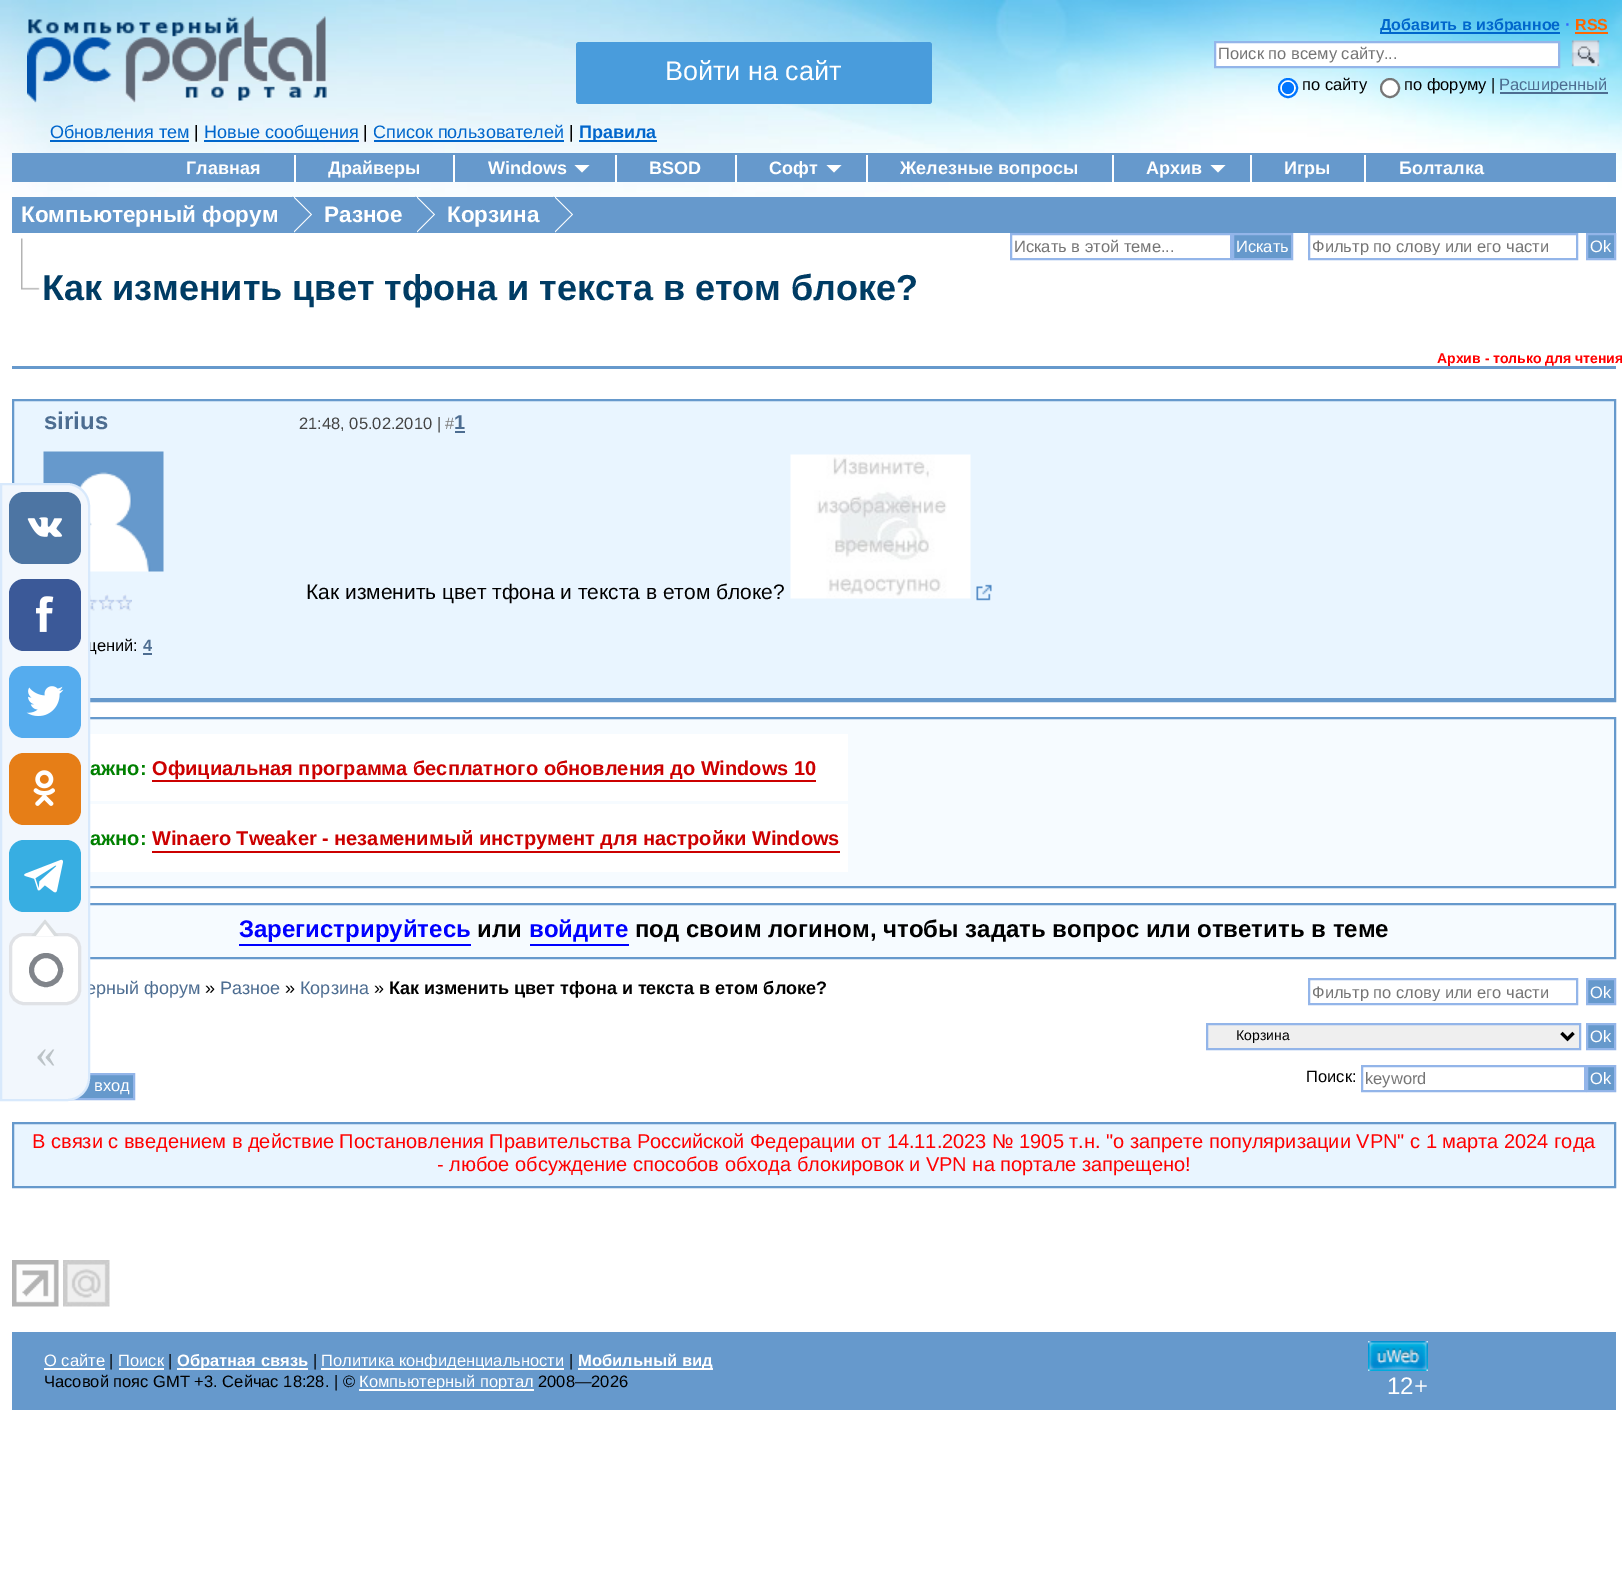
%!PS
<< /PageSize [1622 1583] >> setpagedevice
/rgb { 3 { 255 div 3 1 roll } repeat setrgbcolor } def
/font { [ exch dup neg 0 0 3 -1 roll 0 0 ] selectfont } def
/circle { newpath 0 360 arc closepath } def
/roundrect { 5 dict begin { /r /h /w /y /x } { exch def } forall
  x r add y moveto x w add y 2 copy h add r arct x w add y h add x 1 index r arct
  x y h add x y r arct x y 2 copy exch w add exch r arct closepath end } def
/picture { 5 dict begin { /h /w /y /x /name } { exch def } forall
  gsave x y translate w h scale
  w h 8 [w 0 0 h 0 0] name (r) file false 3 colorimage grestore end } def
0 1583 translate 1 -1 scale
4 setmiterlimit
255 255 255 rgb
0 0 1622 1583 rectfill
(img/1.rgb) 0 0 1622 204 picture
(img/2.rgb) 27 16 300 87 picture
73 156 220 rgb
576 42 356 62 3 roundrect fill
0 102 204 rgb
1380 32 180 2 rectfill
255 102 0 rgb
1575 32 33 2 rectfill
255 255 255 rgb
1215 42 moveto 1559 42 lineto 1559 67 lineto 1215 67 lineto closepath gsave fill grestore
147 181 233 rgb
2 setlinewidth
stroke
(img/3.rgb) 1571 40 29 27 picture
255 255 255 rgb
1288 88 9 circle gsave fill grestore
0 117 255 rgb
stroke
1288 88 6 circle fill
255 255 255 rgb
1390 88 9 circle gsave fill grestore
118 118 118 rgb
stroke
[
  [1500 92 108 2 77 109 145]
  [50 140 139 2 0 102 204]
  [204 140 155 2 0 102 204]
  [374 140 190 2 0 102 204]
  [579 140 78 2 0 102 204]
  [12 153 1604 29 102 153 204]
  [294 155 2 27 255 255 255]
  [453 155 2 27 255 255 255]
  [615 155 2 27 255 255 255]
] { aload pop rgb rectfill } forall
574.5 165 moveto 589.5 165 lineto 582 172.5 lineto closepath fill
735 155 2 27 rectfill
866 155 2 27 rectfill
826.5 165 moveto 841.5 165 lineto 834 172.5 lineto closepath fill
1112 155 2 27 rectfill
1250 155 2 27 rectfill
1210.5 165 moveto 1225.5 165 lineto 1218 172.5 lineto closepath fill
1364 155 2 27 rectfill
102 153 204 rgb
12 197 1604 36 rectfill
255 255 255 rgb
294 232.5 moveto 294 196.5 lineto 312 214.5 lineto closepath fill
102 153 204 rgb
292.5 232.5 moveto 292.5 196.5 lineto 310.5 214.5 lineto closepath fill
255 255 255 rgb
417 232.5 moveto 417 196.5 lineto 435 214.5 lineto closepath fill
102 153 204 rgb
415.5 232.5 moveto 415.5 196.5 lineto 433.5 214.5 lineto closepath fill
255 255 255 rgb
555 232.5 moveto 555 196.5 lineto 573 214.5 lineto closepath fill
102 153 204 rgb
553.5 232.5 moveto 553.5 196.5 lineto 571.5 214.5 lineto closepath fill
(img/4.rgb) 21 238 2 29 picture
147 181 233 rgb
1011 234 220 25 rectstroke
102 153 204 rgb
1233 234 moveto 1292 234 lineto 1292 259 lineto 1233 259 lineto closepath gsave fill grestore
147 181 233 rgb
stroke
1309 234 268 25 rectstroke
102 153 204 rgb
1587 234 moveto 1615 234 lineto 1615 259 lineto 1587 259 lineto closepath gsave fill grestore
147 181 233 rgb
stroke
(img/5.rgb) 21 267 19 23 picture
102 153 204 rgb
12 366 1604 3 rectfill
233 245 255 rgb
14 401 1600 297 rectfill
102 153 204 rgb
13 400 1602 301 rectstroke
77 109 145 rgb
455 431 10 2 rectfill
(img/6.rgb) 790 454 181 145 picture
(img/7.rgb) 976 584 16 17 picture
(img/8.rgb) 43 451 121 121 picture
(img/9.rgb) 90 594 42 17 picture
[
  [143 653 9 2 77 109 145]
  [90 698 1524 2 102 153 204]
  [90 719 1524 167 246 251 255]
] { aload pop rgb rectfill } forall
102 153 204 rgb
13 718 1602 169 rectstroke
[
  [90 734 758 67 255 255 255]
  [152 780 664 2 204 0 0]
  [90 804 758 68 255 255 255]
  [152 851 688 2 204 0 0]
  [90 905 1524 52 246 251 255]
] { aload pop rgb rectfill } forall
102 153 204 rgb
13 904 1602 54 rectstroke
0 0 255 rgb
239 944 232 2 rectfill
530 944 99 2 rectfill
147 181 233 rgb
1309 979 268 25 rectstroke
102 153 204 rgb
1587 979 moveto 1615 979 lineto 1615 1004 lineto 1587 1004 lineto closepath gsave fill grestore
147 181 233 rgb
stroke
239 239 239 rgb
1207 1024 moveto 1580 1024 lineto 1580 1049 lineto 1207 1049 lineto closepath gsave fill grestore
147 181 233 rgb
stroke
0 0 0 rgb
3 setlinewidth
1561.5 1033 moveto 1567.5 1039 lineto 1573.5 1033 lineto stroke
102 153 204 rgb
1587 1024 moveto 1615 1024 lineto 1615 1049 lineto 1587 1049 lineto closepath gsave fill grestore
147 181 233 rgb
2 setlinewidth
stroke
102 153 204 rgb
78 1075 55 23 rectfill
147 181 233 rgb
18 1074 116 25 rectstroke
1362 1066 223 25 rectstroke
102 153 204 rgb
1587 1066 moveto 1615 1066 lineto 1615 1091 lineto 1587 1091 lineto closepath gsave fill grestore
147 181 233 rgb
stroke
233 245 255 rgb
13 1123 moveto 1615 1123 lineto 1615 1187 lineto 13 1187 lineto closepath gsave fill grestore
102 153 204 rgb
stroke
(img/15.rgb) 12 1260 47 47 picture
(img/16.rgb) 63 1260 47 47 picture
[
  [12 1332 1604 78 102 153 204]
  [44 1368 61 2 255 255 255]
  [119 1368 45 2 255 255 255]
  [177 1368 131 2 255 255 255]
  [321 1368 243 2 255 255 255]
  [578 1368 135 2 255 255 255]
  [359 1389 175 2 255 255 255]
] { aload pop rgb rectfill } forall
(img/17.rgb) 1368 1341 60 30 picture
/LiberationSans-Regular 27 font
665 80 moveto (Войти на сайт) show
/LiberationSans-Bold 16 font
0 102 204 rgb
1380 30 moveto (Добавить в избранное) show
/LiberationSans-Bold 16.5 font
51 102 255 rgb
1565 30 moveto (·) show
/LiberationSans-Bold 16 font
255 102 0 rgb
1575 30 moveto (RSS) show
/LiberationSans-Regular 16.5 font
117 117 117 rgb
1218 59 moveto (Поиск по всему сайту...) show
0 0 0 rgb
1302 90 moveto (по сайту) show
1404 90 moveto (по форуму |) show
77 109 145 rgb
1499 90 moveto (Расширенный) show
/LiberationSans-Regular 18 font
0 102 204 rgb
50 138 moveto (Обновления тем) show
0 0 0 rgb
194 138 moveto (|) show
0 102 204 rgb
204 138 moveto (Новые сообщения) show
0 0 0 rgb
363 138 moveto (|) show
0 102 204 rgb
373 138 moveto (Список пользователей) show
0 0 0 rgb
569 138 moveto (|) show
/LiberationSans-Bold 18 font
0 102 204 rgb
579 138 moveto (Правила) show
255 255 255 rgb
[
  [(Главная) 186 174]
  [(Драйверы) 328 174]
  [(Windows) 488 174]
  [(BSOD) 649 174]
  [(Софт) 769 174]
  [(Железные вопросы) 900 174]
  [(Архив) 1146 174]
  [(Игры) 1284 174]
  [(Болталка) 1399 174]
] { aload pop moveto show } forall
/LiberationSans-Bold 22.5 font
[
  [(Компьютерный форум) 21 222]
  [(Разное) 324 222]
  [(Корзина) 447 222]
] { aload pop moveto show } forall
/LiberationSans-Regular 16.5 font
117 117 117 rgb
1014 252 moveto (Искать в этой теме...) show
255 255 255 rgb
1236 252 moveto (Искать) show
gsave
1313 237 261 18 rectclip
117 117 117 rgb
1312 252 moveto (Фильтр по слову или его части) show
grestore
1590 252 moveto (Ok) show
/LiberationSans-Bold 36 font
0 60 100 rgb
42 300 moveto (Как изменить цвет тфона и текста в етом блоке?) show
/LiberationSans-Bold 14 font
255 0 0 rgb
1437 363 moveto (Архив - только для чтения) show
/LiberationSans-Bold 24 font
77 109 145 rgb
44 429 moveto (sirius) show
/LiberationSans-Regular 16.5 font
68 68 68 rgb
299 429 moveto (21:48, 05.02.2010 |) show
128 128 128 rgb
445 429 moveto (#) show
/LiberationSans-Bold 20 font
77 109 145 rgb
454 429 moveto (1) show
/LiberationSans-Regular 21 font
0 0 0 rgb
306 599 moveto (Как изменить цвет тфона и текста в етом блоке?) show
/LiberationSans-Regular 16.5 font
83 651 moveto (щений:) show
/LiberationSans-Bold 16.5 font
77 109 145 rgb
143 651 moveto (4) show
/LiberationSans-Bold 20 font
0 128 0 rgb
90 775 moveto (ажно:) show
204 0 0 rgb
152 775 moveto (Официальная программа бесплатного обновления до Windows 10) show
0 128 0 rgb
90 845 moveto (ажно:) show
204 0 0 rgb
152 845 moveto (Winaero Tweaker - незаменимый инструмент для настройки Windows) show
/LiberationSans-Bold 24 font
0 0 255 rgb
239 937 moveto (Зарегистрируйтесь) show
0 0 0 rgb
477 937 moveto (или) show
0 0 255 rgb
529 937 moveto (войдите) show
0 0 0 rgb
635 937 moveto (под своим логином, чтобы задать вопрос или ответить в теме) show
/LiberationSans-Regular 18 font
77 109 145 rgb
86 994 moveto (ерный форум) show
242 247 253 rgb
1 484 moveto 67 484 lineto 79 484 89 494 89 506 curveto 89 1078 lineto 89 1090 79 1100 67 1100 curveto 1 1100 lineto closepath gsave fill grestore
216 233 252 rgb
stroke
/LiberationSerif-Regular 42 font
188 195 199 rgb
35 1067 moveto («) show
255 255 255 rgb
10.5 934.5 69 69 13.5 roundrect gsave fill grestore
224 226 230 rgb
3 setlinewidth
stroke
216 220 222 rgb
58.5 936 moveto 31.5 936 lineto 45 919.5 lineto closepath fill
255 255 255 rgb
54 936 moveto 36 936 lineto 45 924 lineto closepath fill
129 133 139 rgb
5 setlinewidth
46 970 14.5 circle stroke
55 174 226 rgb
9 840 72 72 15 roundrect fill
(img/14.rgb) 24 859 39 34 picture
230 126 23 rgb
9 753 72 72 15 roundrect fill
(img/13.rgb) 33 770 22 36 picture
85 172 238 rgb
9 666 72 72 15 roundrect fill
(img/12.rgb) 26 686 38 30 picture
59 89 152 rgb
9 579 72 72 15 roundrect fill
(img/11.rgb) 36 596 18 36 picture
77 117 163 rgb
9 492 72 72 15 roundrect fill
(img/10.rgb) 27 517 36 20 picture
/LiberationSans-Regular 18 font
0 0 0 rgb
205 994 moveto (») show
77 109 145 rgb
220 994 moveto (Разное) show
0 0 0 rgb
285 994 moveto (») show
77 109 145 rgb
300 994 moveto (Корзина) show
0 0 0 rgb
374 994 moveto (») show
/LiberationSans-Bold 18 font
389 994 moveto (Как изменить цвет тфона и текста в етом блоке?) show
gsave
1313 983 261 18 rectclip
/LiberationSans-Regular 16.5 font
117 117 117 rgb
1312 998 moveto (Фильтр по слову или его части) show
grestore
/LiberationSans-Regular 16.5 font
255 255 255 rgb
1590 998 moveto (Ok) show
/LiberationSans-Regular 14 font
0 0 0 rgb
1236 1040 moveto (Корзина) show
/LiberationSans-Regular 16.5 font
255 255 255 rgb
1590 1042 moveto (Ok) show
94 1091 moveto (вход) show
0 0 0 rgb
1306 1082 moveto (Поиск:) show
117 117 117 rgb
1365 1084 moveto (keyword) show
255 255 255 rgb
1590 1084 moveto (Ok) show
/LiberationSans-Regular 20 font
255 0 0 rgb
32 1148 moveto (В связи с введением в действие Постановления Правительства Российской Федерации от 14.11.2023 № 1905 т.н. "о запрете популяризации VPN" с 1 марта 2024 года) show
437 1171 moveto (- любое обсуждение способов обхода блокировок и VPN на портале запрещено!) show
/LiberationSans-Regular 16.5 font
255 255 255 rgb
44 1366 moveto (О сайте) show
0 0 0 rgb
109 1366 moveto (|) show
255 255 255 rgb
118 1366 moveto (Поиск) show
0 0 0 rgb
168 1366 moveto (|) show
/LiberationSans-Bold 16.5 font
255 255 255 rgb
177 1366 moveto (Обратная связь) show
/LiberationSans-Regular 16.5 font
0 0 0 rgb
313 1366 moveto (|) show
255 255 255 rgb
321 1366 moveto (Политика конфиденциальности) show
0 0 0 rgb
569 1366 moveto (|) show
/LiberationSans-Bold 16.5 font
255 255 255 rgb
578 1366 moveto (Мобильный вид) show
/LiberationSans-Regular 16.5 font
0 0 0 rgb
44 1387 moveto (Часовой пояс GMT +3. Сейчас 18:28. | ©) show
255 255 255 rgb
359 1387 moveto (Компьютерный портал) show
0 0 0 rgb
538 1387 moveto (2008—2026) show
/LiberationSans-Regular 24 font
255 255 255 rgb
1387 1394 moveto (12+) show
showpage
